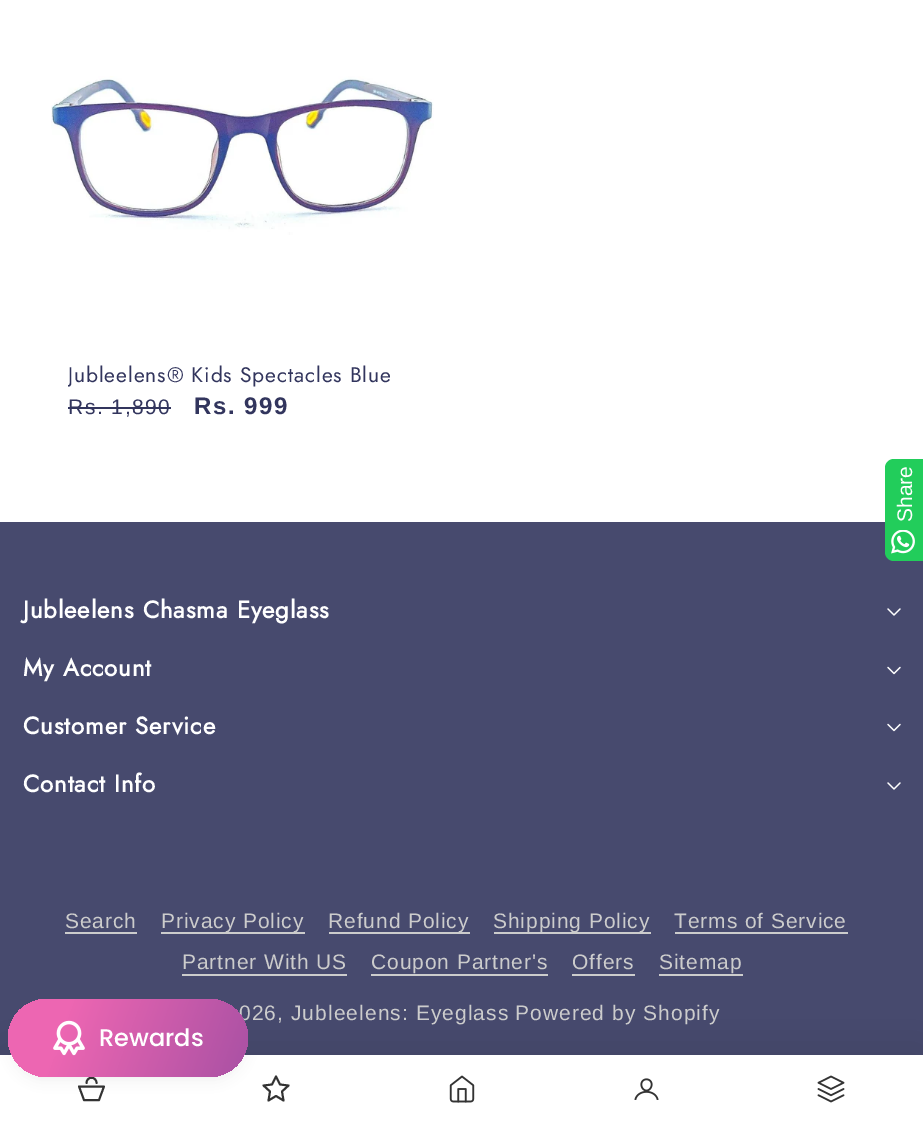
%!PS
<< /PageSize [923 1122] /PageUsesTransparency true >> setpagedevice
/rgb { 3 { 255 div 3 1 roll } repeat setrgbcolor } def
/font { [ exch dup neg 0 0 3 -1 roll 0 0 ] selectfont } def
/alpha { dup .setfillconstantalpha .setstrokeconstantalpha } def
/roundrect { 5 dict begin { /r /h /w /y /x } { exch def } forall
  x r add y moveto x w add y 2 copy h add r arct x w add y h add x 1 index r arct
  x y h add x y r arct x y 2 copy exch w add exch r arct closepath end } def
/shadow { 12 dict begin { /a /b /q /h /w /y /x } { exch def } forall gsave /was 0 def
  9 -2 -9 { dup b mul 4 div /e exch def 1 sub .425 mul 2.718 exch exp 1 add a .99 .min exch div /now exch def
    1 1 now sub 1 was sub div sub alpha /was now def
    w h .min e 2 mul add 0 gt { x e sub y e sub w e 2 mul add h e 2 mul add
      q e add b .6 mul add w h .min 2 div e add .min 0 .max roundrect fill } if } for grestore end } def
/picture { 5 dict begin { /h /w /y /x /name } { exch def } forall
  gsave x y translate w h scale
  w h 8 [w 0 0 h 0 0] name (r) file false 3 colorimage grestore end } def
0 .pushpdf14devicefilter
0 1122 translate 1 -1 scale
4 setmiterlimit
255 255 255 rgb
0 0 923 1122 rectfill
(img/1.rgb) 51 76 383 159 picture
50 53 93 rgb
68 407 103 2 rectfill
71 74 110 rgb
0 522 923 533 rectfill
34 205 91 rgb
894 459 moveto 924 459 lineto 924 561 lineto 894 561 lineto 889 561 885 557 885 552 curveto 885 468 lineto 885 463 889 459 894 459 curveto closepath fill
(img/2.rgb) 891 530 24 24 picture
(img/3.rgb) 887 608 14 8 picture
(img/4.rgb) 887 666 14 9 picture
(img/4.rgb) 887 723 14 9 picture
(img/3.rgb) 887 782 14 8 picture
[
  [65 932 72 2 204 204 204]
  [161 932 144 2 204 204 204]
  [329 932 141 2 204 204 204]
  [494 932 157 2 204 204 204]
  [675 932 173 2 204 204 204]
  [182 974 165 2 204 204 204]
  [371 974 177 2 204 204 204]
  [572 974 63 2 204 204 204]
  [659 974 84 2 204 204 204]
] { aload pop rgb rectfill } forall
0 0 0 rgb
0 1047 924 68 0 22.5 0.1 shadow
255 255 255 rgb
0 1055 923 67 rectfill
51 51 51 rgb
1.9 setlinewidth
1 setlinecap
1 setlinejoin
79 1086.5 moveto 104 1086.5 lineto 99 1100 lineto 84 1100 lineto closepath 96.5 1083 moveto 96.5 1076 86.5 1076 86.5 1083 curveto stroke
276 1076.5 moveto 280 1084.5 lineto 288.5 1085.5 lineto 282 1091.5 lineto 283.5 1100.5 lineto 276 1096 lineto 268.5 1100.5 lineto 270 1091.5 lineto 263.5 1085.5 lineto 272 1084.5 lineto closepath stroke
(img/5.rgb) 449 1075 26 28 picture
(img/6.rgb) 634 1078 25 22 picture
(img/7.rgb) 817 1075 28 28 picture
68 68 68 rgb
11 1008 234 72 36 6 0.08 shadow
gsave
68 362 348 27 rectclip
/Jost-Regular 21 font
50 53 93 rgb
68 382 moveto 0.9 0 (Jubleelens® Kids Spectacles Blue) ashow
grestore
/LiberationSans-Regular 21 font
50 53 93 rgb
68 414 moveto 1.5 0 (Rs. 1,890) ashow
/LiberationSans-Bold 24 font
194 414 moveto 1.5 0 (Rs. 999) ashow
/LiberationSans-Regular 21 font
255 255 255 rgb
gsave 912 522 translate -90 rotate 0 0 moveto (Share) show grestore
/Jost-Bold 24 font
23 618 moveto 0.9 0 (Jubleelens Chasma Eyeglass) ashow
23 676 moveto 0.9 0 (My Account) ashow
23 734 moveto 0.9 0 (Customer Service) ashow
23 792 moveto 0.9 0 (Contact Info) ashow
/LiberationSans-Regular 21 font
204 204 204 rgb
65 928 moveto 0.9 0 (Search) ashow
161 928 moveto 0.9 0 (Privacy Policy) ashow
328 928 moveto 0.9 0 (Refund Policy) ashow
493 928 moveto 0.9 0 (Shipping Policy) ashow
674 928 moveto 0.9 0 (Terms of Service) ashow
182 969 moveto 0.9 0 (Partner With US) ashow
371 969 moveto 0.9 0 (Coupon Partner's) ashow
572 969 moveto 0.9 0 (Offers) ashow
659 969 moveto 0.9 0 (Sitemap) ashow
239 1020 moveto 1.05 0 (026, Jubleelens: Eyeglass) ashow
515 1020 moveto 1.05 0 (Powered by Shopify) ashow
gsave 8 999 240 78 39 roundrect clip newpath
<< /ShadingType 2 /ColorSpace /DeviceRGB /Coords [9 996 342 1114] /Extend [true true] /Function << /FunctionType 3 /Domain [0 1] /Functions [<< /FunctionType 2 /Domain [0 1] /C0 [0.929 0.4 0.698] /C1 [0.929 0.4 0.698] /N 1 >> << /FunctionType 2 /Domain [0 1] /C0 [0.929 0.4 0.698] /C1 [0.525 0.275 0.612] /N 1 >>] /Bounds [0.17] /Encode [0 1 0 1] >> >> shfill grestore
(img/8.rgb) 53 1020 32 36 picture
/Poppins-Medium 24 font
255 255 255 rgb
99 1046 moveto (Rewards) show
.poppdf14devicefilter showpage
